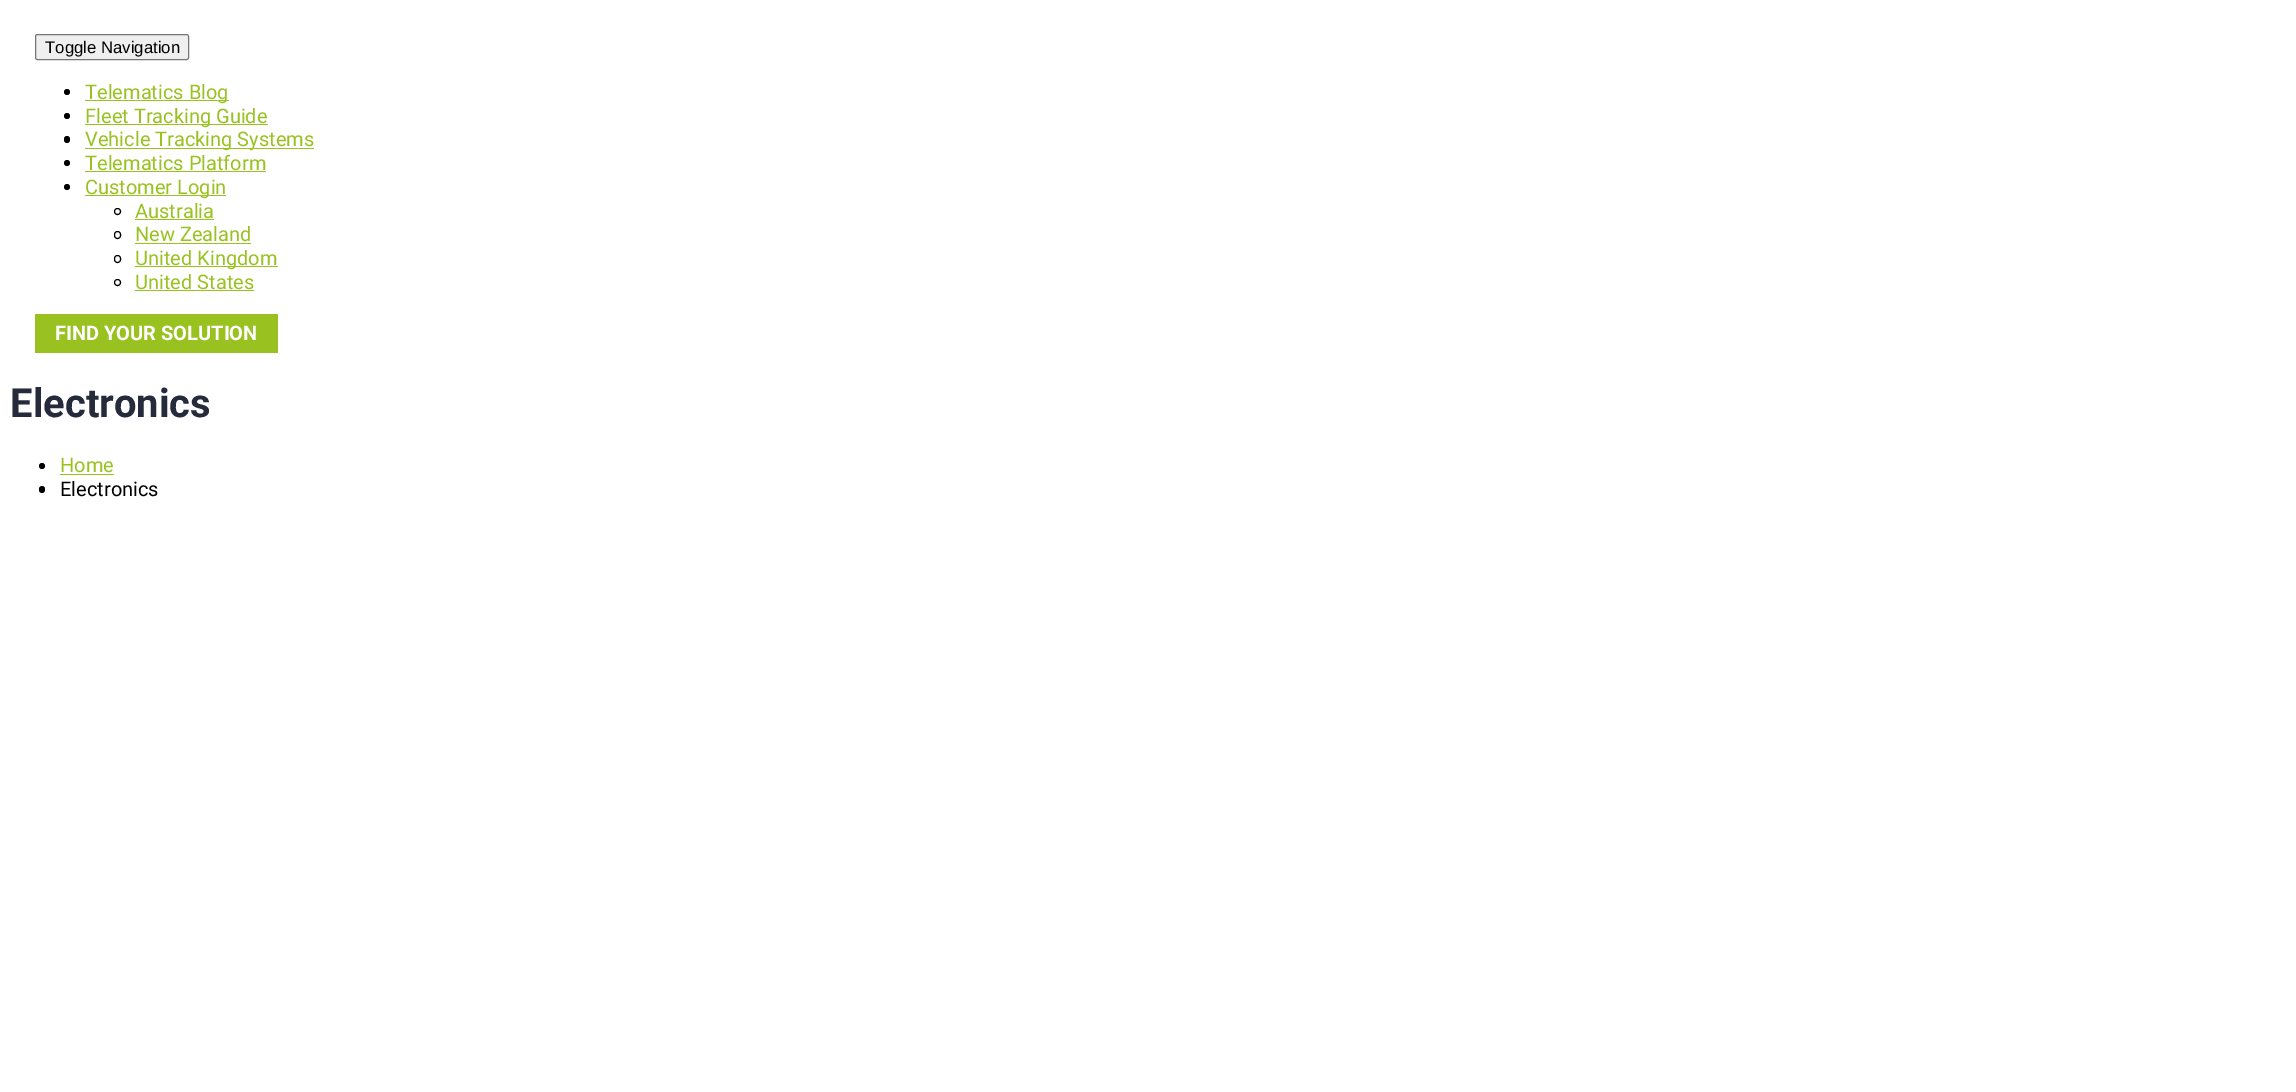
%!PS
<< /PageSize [2296 1092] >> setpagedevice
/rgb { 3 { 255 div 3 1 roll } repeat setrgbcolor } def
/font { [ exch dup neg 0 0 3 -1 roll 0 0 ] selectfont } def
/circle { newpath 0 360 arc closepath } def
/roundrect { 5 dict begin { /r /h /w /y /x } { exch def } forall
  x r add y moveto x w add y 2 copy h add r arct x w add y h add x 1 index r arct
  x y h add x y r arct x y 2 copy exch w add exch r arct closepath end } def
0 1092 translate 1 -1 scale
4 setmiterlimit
255 255 255 rgb
0 0 2296 1092 rectfill
239 239 239 rgb
35.5 34.5 153 25 2 roundrect gsave fill grestore
118 118 118 rgb
stroke
0 0 0 rgb
67 92 3 circle fill
153 194 33 rgb
85 100 144 1 rectfill
0 0 0 rgb
67 116 3 circle fill
153 194 33 rgb
85 124 183 1 rectfill
0 0 0 rgb
64 136 6 7 3 roundrect fill
153 194 33 rgb
85 148 229 1 rectfill
0 0 0 rgb
67 163 3 circle fill
153 194 33 rgb
85 171 181 1 rectfill
0 0 0 rgb
67 187 3 circle fill
153 194 33 rgb
85 195 141 1 rectfill
0 0 0 rgb
117.5 211.5 3 circle stroke
153 194 33 rgb
135 219 79 1 rectfill
0 0 0 rgb
114.5 231.5 6 7 3 roundrect stroke
153 194 33 rgb
135 243 116 1 rectfill
0 0 0 rgb
114.5 255.5 6 7 3 roundrect stroke
153 194 33 rgb
135 266 143 1 rectfill
0 0 0 rgb
117.5 282.5 3 circle stroke
153 194 33 rgb
135 290 119 1 rectfill
35 314 243 39 rectfill
0 0 0 rgb
42 466 3 circle fill
153 194 33 rgb
60 474 54 1 rectfill
0 0 0 rgb
39 486 6 7 3 roundrect fill
/LiberationSans-Regular 16.75 font
45 53 moveto (Toggle Navigation) show
/Roboto-Regular 20 font
153 194 33 rgb
[
  [(Telematics Blog) 85 99]
  [(Fleet Tracking Guide) 85 123]
  [(Vehicle Tracking Systems) 85 146]
  [(Telematics Platform) 85 170]
  [(Customer Login) 85 194]
  [(Australia) 135 218]
  [(New Zealand) 135 241]
  [(United Kingdom) 135 265]
  [(United States) 135 289]
] { aload pop moveto show } forall
/Roboto-Bold 20 font
255 255 255 rgb
55 340 moveto (FIND YOUR SOLUTION) show
/Roboto-Bold 40 font
37 43 59 rgb
10 417 moveto (Electronics) show
/Roboto-Regular 20 font
153 194 33 rgb
60 472 moveto (Home) show
0 0 0 rgb
60 496 moveto (Electronics) show
showpage
